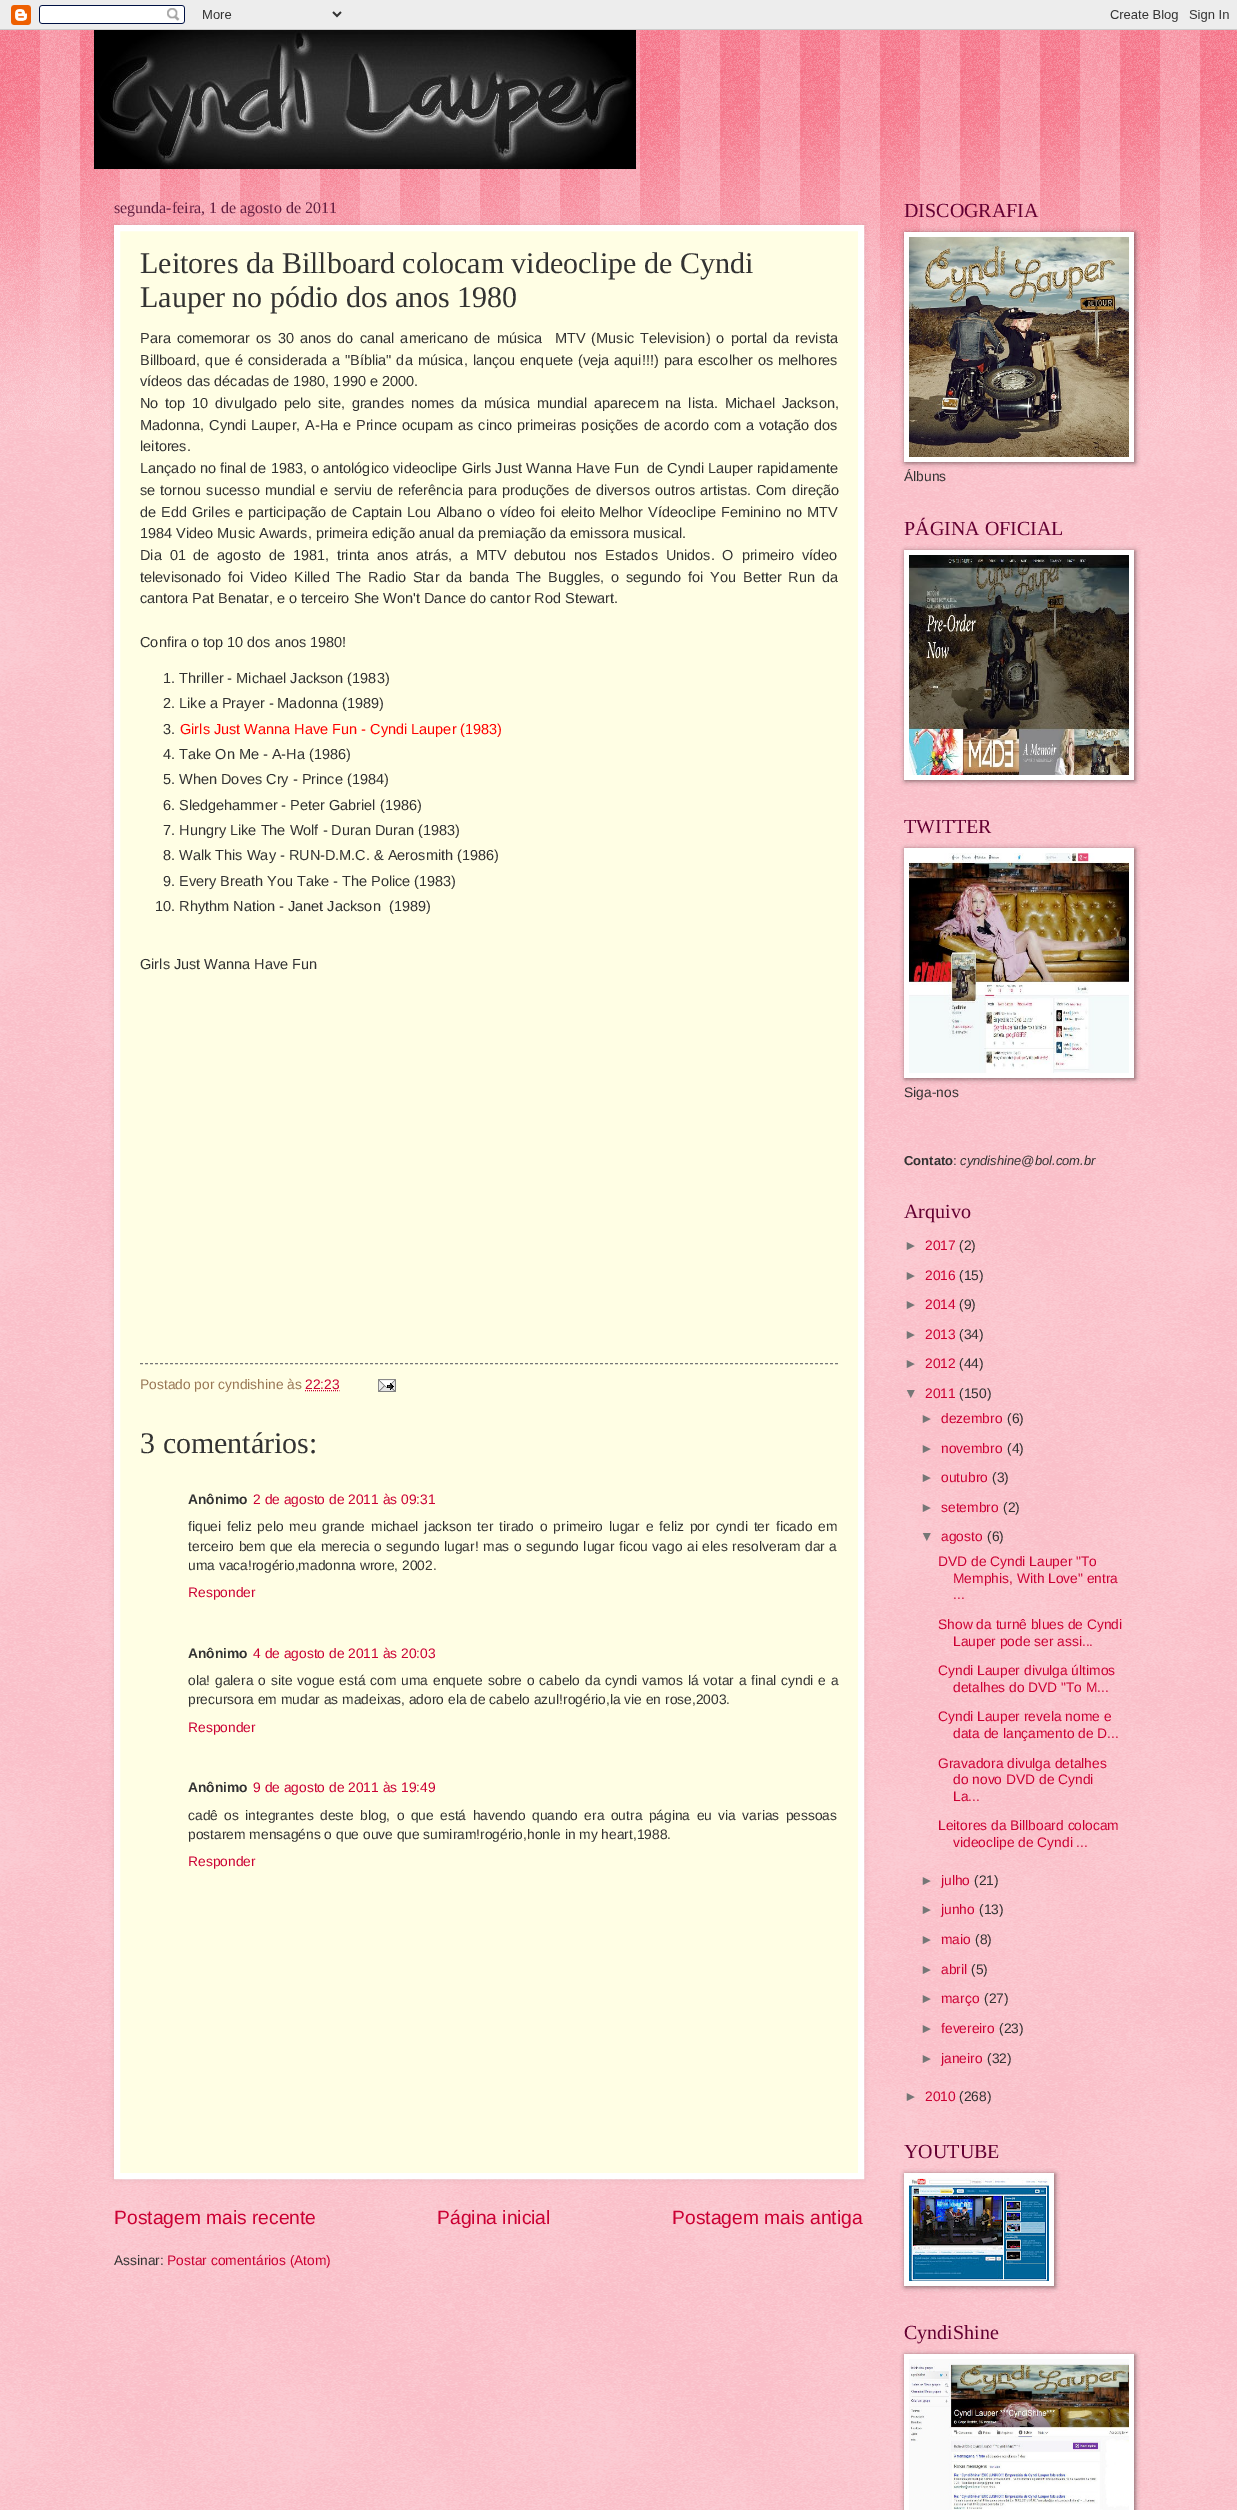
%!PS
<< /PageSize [1237 2510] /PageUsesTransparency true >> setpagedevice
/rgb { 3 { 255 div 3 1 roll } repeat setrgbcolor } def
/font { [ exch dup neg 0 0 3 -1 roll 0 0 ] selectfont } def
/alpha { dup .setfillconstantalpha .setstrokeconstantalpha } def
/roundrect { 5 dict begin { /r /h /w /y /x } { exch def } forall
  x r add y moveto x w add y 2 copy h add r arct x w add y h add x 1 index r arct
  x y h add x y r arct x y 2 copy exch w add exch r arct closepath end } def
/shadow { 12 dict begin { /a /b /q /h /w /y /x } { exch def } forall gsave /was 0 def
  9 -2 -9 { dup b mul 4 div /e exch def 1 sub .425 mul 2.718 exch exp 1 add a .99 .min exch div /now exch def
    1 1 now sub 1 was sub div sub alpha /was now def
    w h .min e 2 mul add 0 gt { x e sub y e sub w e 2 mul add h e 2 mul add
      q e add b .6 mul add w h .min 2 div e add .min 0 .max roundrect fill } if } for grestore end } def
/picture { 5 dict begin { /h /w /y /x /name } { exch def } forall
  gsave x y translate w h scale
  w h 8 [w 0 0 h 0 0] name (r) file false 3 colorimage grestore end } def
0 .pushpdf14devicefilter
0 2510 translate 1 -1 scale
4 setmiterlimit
255 255 255 rgb
0 0 1237 2510 rectfill
(img/1.rgb) 0 430 1237 2080 picture
(img/2.rgb) 0 0 1237 30 picture
237 16 51 rgb
0 30 1237 400 rectfill
(img/3.rgb) 0 30 1237 400 picture
(img/4.rgb) 94 30 542 139 picture
0 0 0 rgb
114 225 750 1954 0 2.5 0.1 shadow
255 254 228 rgb
117 228 moveto 861 228 lineto 861 2176 lineto 117 2176 lineto closepath gsave fill grestore
255 255 255 rgb
6 setlinewidth
stroke
118 118 118 rgb
1 setlinewidth
[3 2] 0 setdash
140 1363.5 moveto 838 1363.5 lineto stroke
203 0 51 rgb
[1 1] 0 setdash
305 1390.5 moveto 339.5 1390.5 lineto stroke
(img/5.rgb) 378 1379 18 13 picture
0 0 0 rgb
905 233 230 230 0 2.5 0.5 shadow
255 255 255 rgb
904 232 230 230 rectfill
(img/6.rgb) 909 237 220 220 picture
0 0 0 rgb
905 551 230 230 0 2.5 0.5 shadow
255 255 255 rgb
904 550 230 230 rectfill
(img/7.rgb) 909 555 220 220 picture
0 0 0 rgb
905 849 230 230 0 2.5 0.5 shadow
255 255 255 rgb
904 848 230 230 rectfill
(img/8.rgb) 909 853 220 220 picture
0 0 0 rgb
905 2174 150 113 0 2.5 0.5 shadow
255 255 255 rgb
904 2173 150 113 rectfill
(img/9.rgb) 909 2178 140 103 picture
0 0 0 rgb
905 2355 230 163 0 2.5 0.5 shadow
255 255 255 rgb
904 2354 230 156 rectfill
(img/10.rgb) 909 2359 220 151 picture
/LiberationSerif-Regular 16 font
101 33 67 rgb
114 213 moveto (segunda-feira, 1 de agosto de 2011) show
/LiberationSerif-Regular 30 font
50 50 50 rgb
140 273 moveto (Leitores da Billboard colocam videoclipe de Cyndi) show
140 307 moveto (Lauper no pódio dos anos 1980) show
/LiberationSans-Regular 14.5 font
140 343 moveto 2.1 0 32 (Para comemorar os 30 anos do canal americano de música  MTV \(Music Television\) o portal da revista) widthshow
140 365 moveto 1 0 32 (Billboard, que é considerada a "Bíblia" da música, lançou enquete \(veja aqui!!!) widthshow
654 365 moveto 1 0 32 (\) para escolher os melhores) widthshow
140 386 moveto (vídeos das décadas de 1980, 1990 e 2000.) show
140 408 moveto 2.75 0 32 (No top 10 divulgado pelo site, grandes nomes da música mundial aparecem na lista. Michael Jackson,) widthshow
140 430 moveto 0.8 0 32 (Madonna, Cyndi Lauper, A-Ha e Prince ocupam as cinco primeiras posições de acordo com a votação dos) widthshow
140 451 moveto (leitores.) show
140 473 moveto (Lançado no final de 1983, o antológico videoclipe Girls Just Wanna Have Fun  de Cyndi Lauper rapidamente) show
140 495 moveto 1 0 32 (se tornou sucesso mundial e serviu de referência para produções de diversos outros artistas. Com direção) widthshow
140 517 moveto 1 0 32 (de Edd Griles e participação de Captain Lou Albano o vídeo foi e) widthshow
568 517 moveto (leito) show
599 517 moveto 1 0 32 (Melhor Vídeoclipe Feminino no MTV) widthshow
140 538 moveto (1984 Video Music Awards, primeira edição anual da premiação da emissora musical.) show
140 560 moveto 3.75 0 32 (Dia 01 de agosto de 1981, trinta anos atrás, a MTV debutou nos Estados Unidos. O primeiro vídeo) widthshow
140 582 moveto 2.75 0 32 (televisonado foi Video Killed The Radio Star da banda The Buggles, o segundo foi You Better Run da) widthshow
[
  [(cantora Pat Benatar, e o terceiro She Won't Dance do cantor Rod Stewart.) 140 603]
  [(Confira o top 10 dos anos 1980!) 140 647]
  [(1. Thriller - Michael Jackson \(1983\)) 163 683]
  [(2. Like a Prayer - Madonna \(1989\)) 163 708]
  [(3.) 163 734]
] { aload pop moveto show } forall
255 0 0 rgb
180 734 moveto (Girls Just Wanna Have Fun - Cyndi Lauper \(1983\)) show
50 50 50 rgb
[
  [(4. Take On Me - A-Ha \(1986\)) 163 759]
  [(5. When Doves Cry - Prince \(1984\)) 163 784]
  [(6. Sledgehammer - Peter Gabriel \(1986\)) 163 810]
  [(7. Hungry Like The Wolf - Duran Duran \(1983\)) 163 835]
  [(8. Walk This Way - RUN-D.M.C. & Aerosmith \(1986\)) 163 860]
  [(9. Every Breath You Take - The Police \(1983\)) 163 886]
  [(10. Rhythm Nation - Janet Jackson  \(1989\)) 155 911]
  [(Girls Just Wanna Have Fun) 140 969]
] { aload pop moveto show } forall
/LiberationSans-Regular 13.8 font
152 118 84 rgb
140 1389 moveto (Postado por cyndishine às) show
203 0 51 rgb
305 1389 moveto (22:23) show
/LiberationSerif-Regular 30 font
50 50 50 rgb
140 1453 moveto (3 comentários:) show
/LiberationSans-Bold 13.8 font
188 1504 moveto (Anônimo) show
/LiberationSans-Regular 13.8 font
203 0 51 rgb
253 1504 moveto (2 de agosto de 2011 às 09:31) show
50 50 50 rgb
188 1531 moveto 2.1 0 32 (fiquei feliz pelo meu grande michael jackson ter tirado o primeiro lugar e feliz por cyndi ter ficado em) widthshow
188 1551 moveto 0.75 0 32 (terceiro bem que ela merecia o segundo lugar! mas o segundo lugar ficou vago ai eles resolveram dar a) widthshow
188 1570 moveto (uma vaca!rogério,madonna wrore, 2002.) show
203 0 51 rgb
188 1597 moveto (Responder) show
/LiberationSans-Bold 13.8 font
50 50 50 rgb
188 1658 moveto (Anônimo) show
/LiberationSans-Regular 13.8 font
203 0 51 rgb
253 1658 moveto (4 de agosto de 2011 às 20:03) show
50 50 50 rgb
188 1685 moveto 1 0 32 (ola! galera o site vogue está com uma enquete sobre o cabelo da cyndi vamos lá votar a final cyndi e a) widthshow
188 1704 moveto (precursora em mudar as madeixas, adoro ela de cabelo azul!rogério,la vie en rose,2003.) show
203 0 51 rgb
188 1732 moveto (Responder) show
/LiberationSans-Bold 13.8 font
50 50 50 rgb
188 1792 moveto (Anônimo) show
/LiberationSans-Regular 13.8 font
203 0 51 rgb
253 1792 moveto (9 de agosto de 2011 às 19:49) show
50 50 50 rgb
188 1820 moveto 2.6 0 32 (cadê os integrantes deste blog, o que está havendo quando era outra página eu via varias pessoas) widthshow
188 1839 moveto (postarem mensagéns o que ouve que sumiram!rogério,honle in my heart,1988.) show
203 0 51 rgb
188 1866 moveto (Responder) show
/LiberationSans-Regular 19.25 font
[
  [(Postagem mais recente) 114 2224]
  [(Página inicial) 437 2224]
  [(Postagem mais antiga) 672 2224]
] { aload pop moveto show } forall
/LiberationSans-Regular 13.8 font
50 50 50 rgb
114 2265 moveto (Assinar:) show
203 0 51 rgb
167 2265 moveto (Postar comentários \(Atom\)) show
/LiberationSerif-Regular 20 font
100 0 50 rgb
904 217 moveto (DISCOGRAFIA) show
/LiberationSans-Regular 13.8 font
50 50 50 rgb
904 481 moveto (Álbuns) show
/LiberationSerif-Regular 20 font
100 0 50 rgb
904 535 moveto (PÁGINA OFICIAL) show
904 833 moveto (TWITTER) show
/LiberationSans-Regular 13.8 font
50 50 50 rgb
904 1097 moveto (Siga-nos) show
/LiberationSans-Bold 13 font
904 1165 moveto (Contato) show
/LiberationSans-Regular 13 font
953 1165 moveto (:) show
/LiberationSans-Italic 13 font
960 1165 moveto (cyndishine@bol.com.br) show
/LiberationSerif-Regular 20 font
100 0 50 rgb
904 1218 moveto (Arquivo) show
/LiberationSans-Regular 13.8 font
118 118 118 rgb
904 1250 moveto (►) show
203 0 51 rgb
925 1250 moveto (2017) show
50 50 50 rgb
959 1250 moveto (\(2\)) show
118 118 118 rgb
904 1280 moveto (►) show
203 0 51 rgb
925 1280 moveto (2016) show
50 50 50 rgb
959 1280 moveto (\(15\)) show
118 118 118 rgb
904 1309 moveto (►) show
203 0 51 rgb
925 1309 moveto (2014) show
50 50 50 rgb
959 1309 moveto (\(9\)) show
118 118 118 rgb
904 1339 moveto (►) show
203 0 51 rgb
925 1339 moveto (2013) show
50 50 50 rgb
959 1339 moveto (\(34\)) show
118 118 118 rgb
904 1368 moveto (►) show
203 0 51 rgb
925 1368 moveto (2012) show
50 50 50 rgb
959 1368 moveto (\(44\)) show
118 118 118 rgb
904 1398 moveto (▼) show
203 0 51 rgb
925 1398 moveto (2011) show
50 50 50 rgb
959 1398 moveto (\(150\)) show
118 118 118 rgb
920 1423 moveto (►) show
203 0 51 rgb
941 1423 moveto (dezembro) show
50 50 50 rgb
1007 1423 moveto (\(6\)) show
118 118 118 rgb
920 1453 moveto (►) show
203 0 51 rgb
941 1453 moveto (novembro) show
50 50 50 rgb
1007 1453 moveto (\(4\)) show
118 118 118 rgb
920 1482 moveto (►) show
203 0 51 rgb
941 1482 moveto (outubro) show
50 50 50 rgb
992 1482 moveto (\(3\)) show
118 118 118 rgb
920 1512 moveto (►) show
203 0 51 rgb
941 1512 moveto (setembro) show
50 50 50 rgb
1003 1512 moveto (\(2\)) show
118 118 118 rgb
920 1541 moveto (▼) show
203 0 51 rgb
941 1541 moveto (agosto) show
50 50 50 rgb
987 1541 moveto (\(6\)) show
203 0 51 rgb
[
  [(DVD de Cyndi Lauper "To) 938 1566]
  [(Memphis, With Love" entra) 953 1583]
  [(...) 953 1599]
  [(Show da turnê blues de Cyndi) 938 1629]
  [(Lauper pode ser assi...) 953 1646]
  [(Cyndi Lauper divulga últimos) 938 1675]
  [(detalhes do DVD "To M...) 953 1692]
  [(Cyndi Lauper revela nome e) 938 1721]
  [(data de lançamento de D...) 953 1738]
  [(Gravadora divulga detalhes) 938 1768]
  [(do novo DVD de Cyndi) 953 1784]
  [(La...) 953 1801]
  [(Leitores da Billboard colocam) 938 1830]
  [(videoclipe de Cyndi ...) 953 1847]
] { aload pop moveto show } forall
118 118 118 rgb
920 1885 moveto (►) show
203 0 51 rgb
941 1885 moveto (julho) show
50 50 50 rgb
974 1885 moveto (\(21\)) show
118 118 118 rgb
920 1914 moveto (►) show
203 0 51 rgb
941 1914 moveto (junho) show
50 50 50 rgb
979 1914 moveto (\(13\)) show
118 118 118 rgb
920 1944 moveto (►) show
203 0 51 rgb
941 1944 moveto (maio) show
50 50 50 rgb
975 1944 moveto (\(8\)) show
118 118 118 rgb
920 1974 moveto (►) show
203 0 51 rgb
941 1974 moveto (abril) show
50 50 50 rgb
971 1974 moveto (\(5\)) show
118 118 118 rgb
920 2003 moveto (►) show
203 0 51 rgb
941 2003 moveto (março) show
50 50 50 rgb
984 2003 moveto (\(27\)) show
118 118 118 rgb
920 2033 moveto (►) show
203 0 51 rgb
941 2033 moveto (fevereiro) show
50 50 50 rgb
999 2033 moveto (\(23\)) show
118 118 118 rgb
920 2063 moveto (►) show
203 0 51 rgb
941 2063 moveto (janeiro) show
50 50 50 rgb
987 2063 moveto (\(32\)) show
118 118 118 rgb
904 2101 moveto (►) show
203 0 51 rgb
925 2101 moveto (2010) show
50 50 50 rgb
959 2101 moveto (\(268\)) show
/LiberationSerif-Regular 20 font
100 0 50 rgb
904 2158 moveto (YOUTUBE) show
904 2339 moveto (CyndiShine) show
.poppdf14devicefilter showpage
